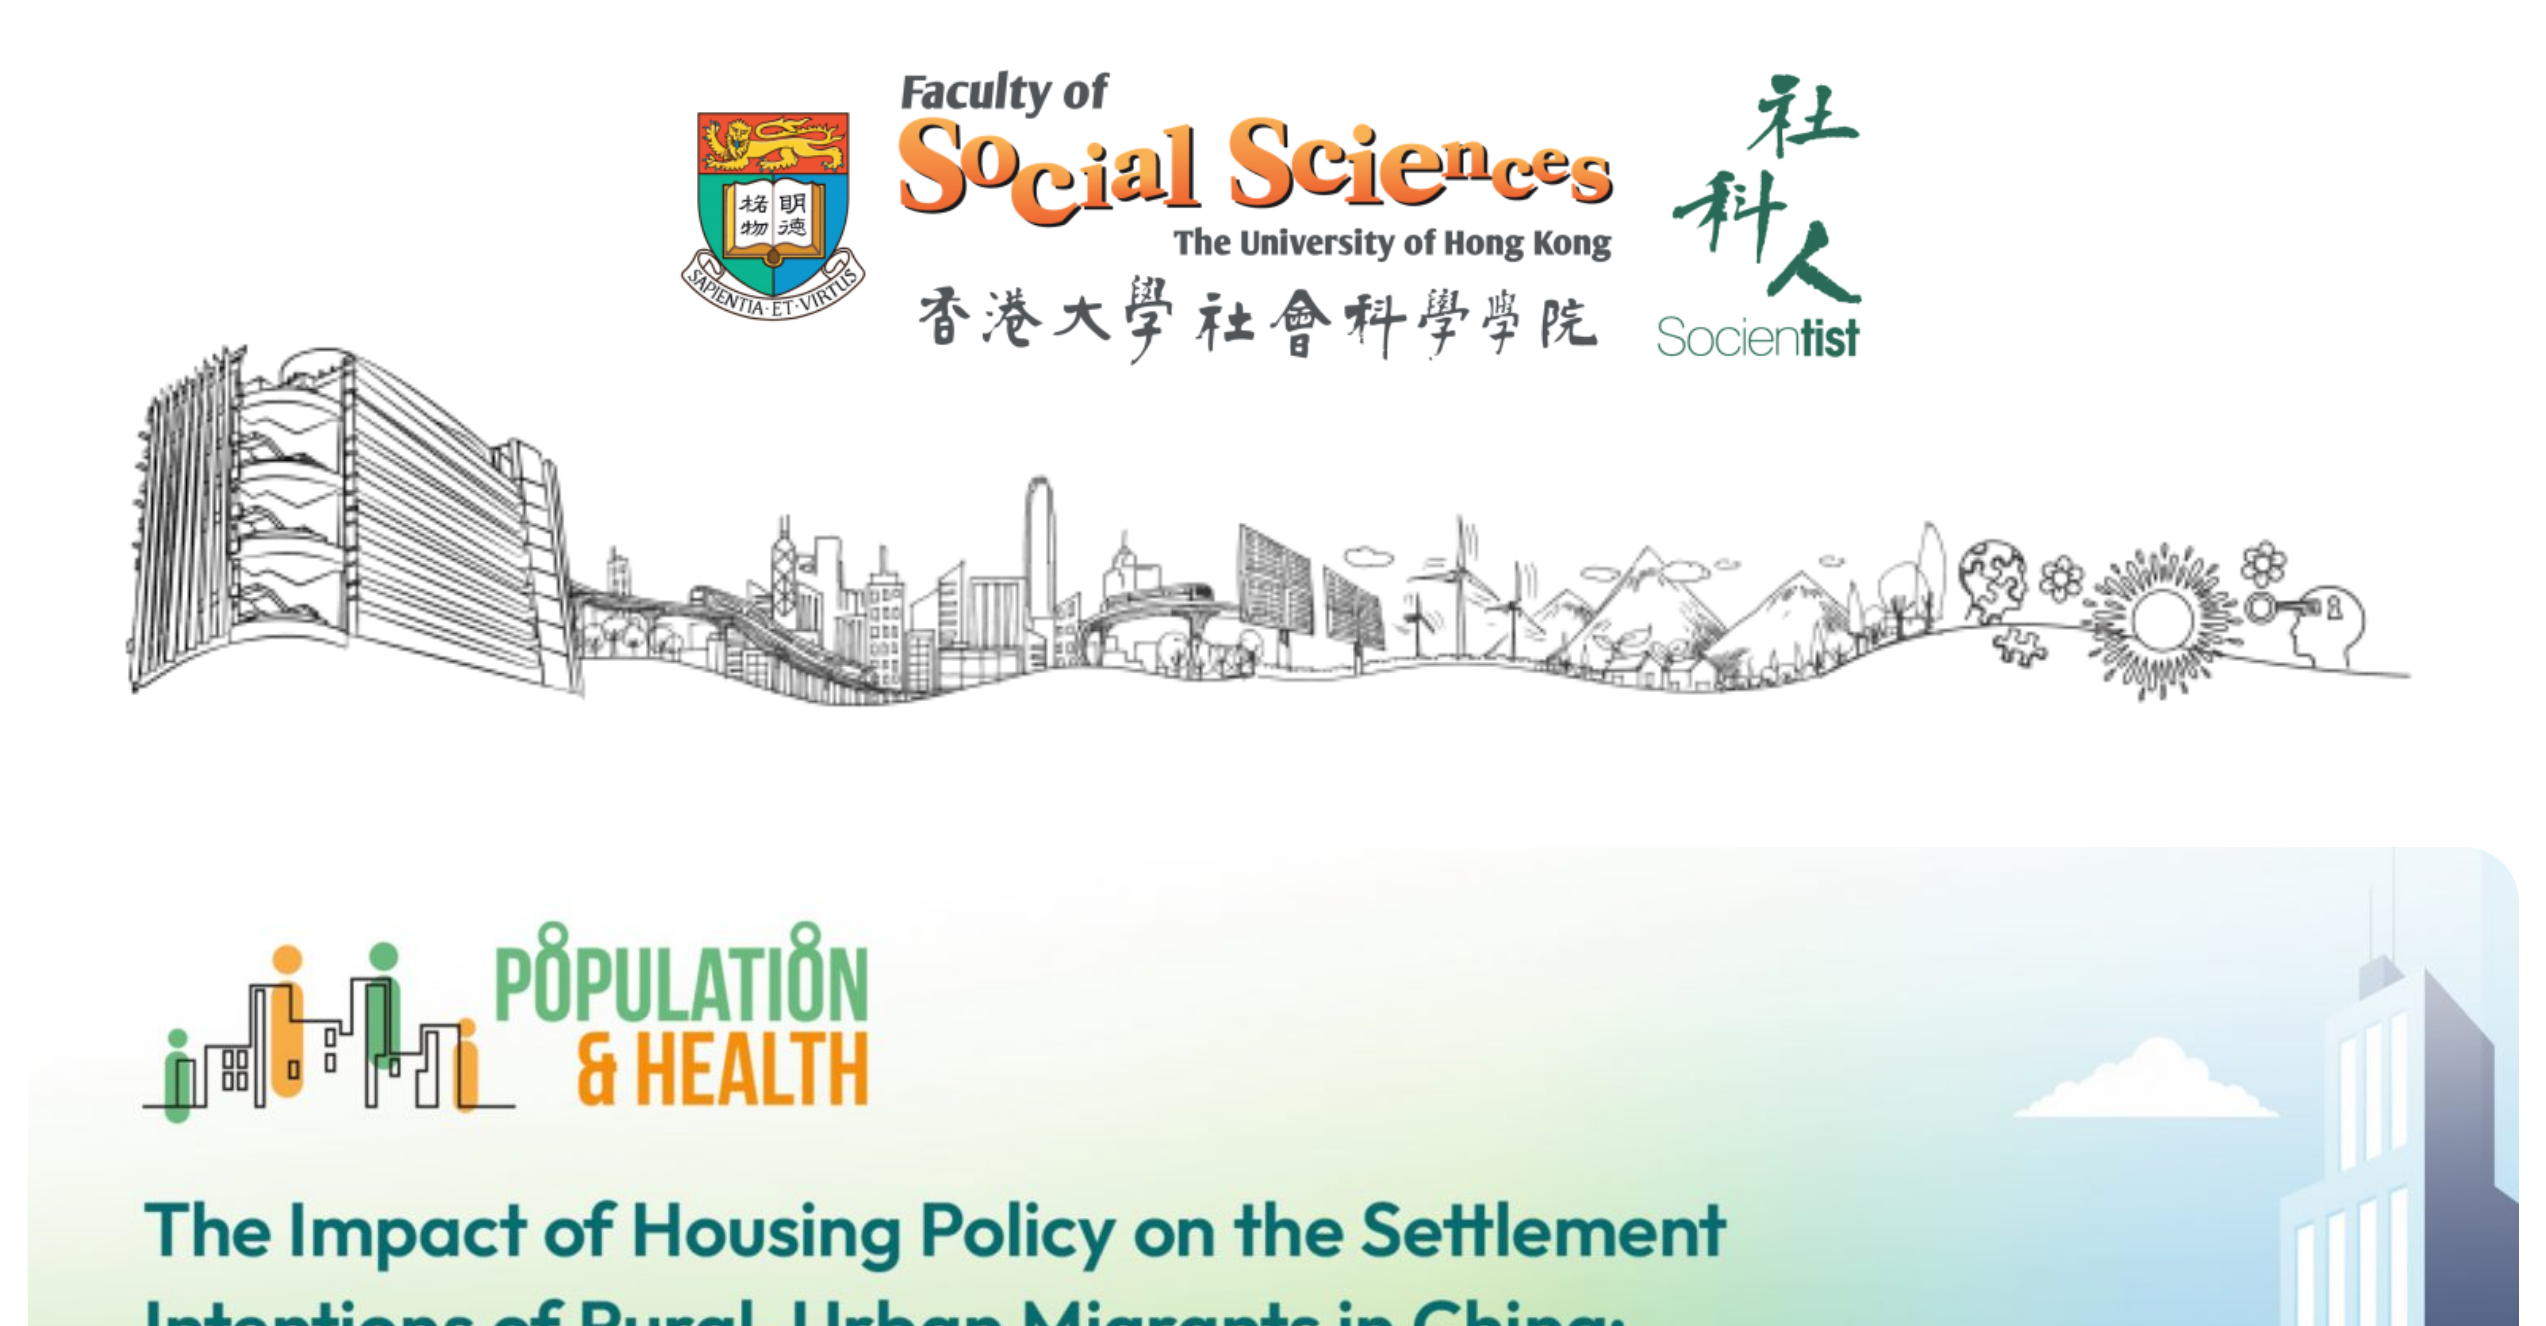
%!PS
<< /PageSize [2546 1326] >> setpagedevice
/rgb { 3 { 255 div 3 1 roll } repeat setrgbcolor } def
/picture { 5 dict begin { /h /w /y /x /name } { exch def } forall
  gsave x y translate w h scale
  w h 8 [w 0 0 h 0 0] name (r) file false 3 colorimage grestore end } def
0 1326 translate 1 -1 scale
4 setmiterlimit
255 255 255 rgb
0 0 2546 1326 rectfill
(img/1.rgb) 679 69 1185 297 picture
(img/2.rgb) 125 343 2288 366 picture
(img/3.rgb) 27 847 2492 479 picture
showpage
